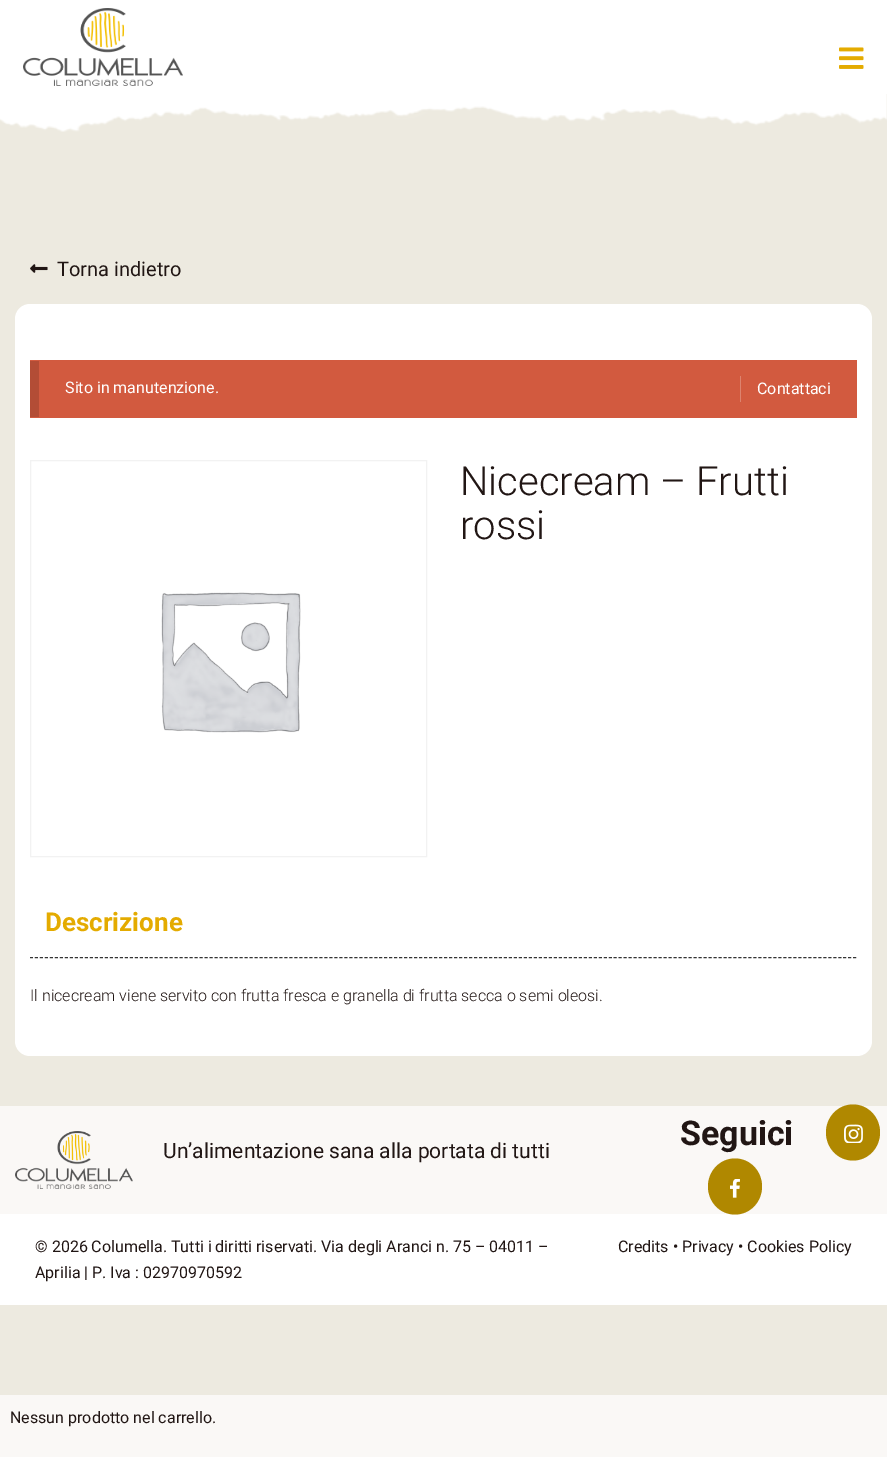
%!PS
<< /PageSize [887 1457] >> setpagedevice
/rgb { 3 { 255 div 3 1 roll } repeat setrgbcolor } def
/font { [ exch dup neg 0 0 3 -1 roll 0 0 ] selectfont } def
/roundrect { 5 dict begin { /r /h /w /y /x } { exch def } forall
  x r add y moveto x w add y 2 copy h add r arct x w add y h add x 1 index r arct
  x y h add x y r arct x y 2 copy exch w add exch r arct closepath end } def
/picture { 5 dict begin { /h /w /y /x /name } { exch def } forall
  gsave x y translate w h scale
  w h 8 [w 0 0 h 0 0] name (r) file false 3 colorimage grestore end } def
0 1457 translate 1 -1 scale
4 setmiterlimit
237 234 224 rgb
0 0 887 1457 rectfill
255 255 255 rgb
0 0 887 94 rectfill
(img/1.rgb) 23 8 160 78 picture
(img/2.rgb) 839 47 25 22 picture
(img/3.rgb) 0 94 887 38 picture
(img/4.rgb) 30 264 18 9 picture
15 304 857 752 15 roundrect fill
[
  [30 360 827 58 210 90 63]
  [30 361 9 56 179 77 54]
  [740 376 1 26 221 131 111]
] { aload pop rgb rectfill } forall
242 242 242 rgb
30.5 460.5 396 396 rectstroke
(img/5.rgb) 161 592 140 141 picture
52 52 52 rgb
[3 1.99] 0 setdash
30 957.5 moveto 857 957.5 lineto stroke
[
  [0 1395 887 62 250 248 246]
  [0 1214 887 91 255 255 255]
  [0 1106 887 108 250 248 246]
] { aload pop rgb rectfill } forall
(img/6.rgb) 15 1131 118 58 picture
176 136 0 rgb
853 1104.5 moveto 868 1104.5 880 1117 880 1132.5 curveto 880 1148 868 1160.5 853 1160.5 curveto 838 1160.5 826 1148 826 1132.5 curveto 826 1117 838 1104.5 853 1104.5 curveto closepath fill
(img/7.rgb) 844 1124 19 19 picture
735 1158.5 moveto 750 1158.5 762 1171 762 1186.5 curveto 762 1202 750 1214.5 735 1214.5 curveto 720 1214.5 708 1202 708 1186.5 curveto 708 1171 720 1158.5 735 1158.5 curveto closepath fill
(img/8.rgb) 730 1179 10 19 picture
/Roboto-Regular 20 font
33 22 20 rgb
57 276 moveto (Torna indietro) show
/Roboto-Regular 16 font
255 255 255 rgb
65 393 moveto (Sito in manutenzione.) show
757 394 moveto (Contattaci) show
/Roboto-Light 40 font
33 22 20 rgb
460 495 moveto (Nicecream – Frutti) show
460 539 moveto (rossi) show
/Roboto-Bold 26 font
228 171 0 rgb
45 931 moveto (Descrizione) show
/Roboto-Light 16 font
33 22 20 rgb
30 1001 moveto (Il nicecream viene servito con frutta fresca e granella di frutta secca o semi oleosi.) show
/Roboto-Regular 16 font
10 1423 moveto (Nessun prodotto nel carrello.) show
/Roboto-Regular 21 font
163 1158 moveto (Un’alimentazione sana alla portata di tutti) show
/Roboto-Bold 34 font
680 1145 moveto (Seguici) show
/Roboto-Regular 16 font
[
  [(© 2026 Columella. Tutti i diritti riservati. Via degli Aranci n. 75 – 04011 –) 35 1252]
  [(Aprilia | P. Iva : 02970970592) 35 1278]
  [(Credits • Privacy • Cookies Policy) 618 1252]
] { aload pop moveto show } forall
showpage
